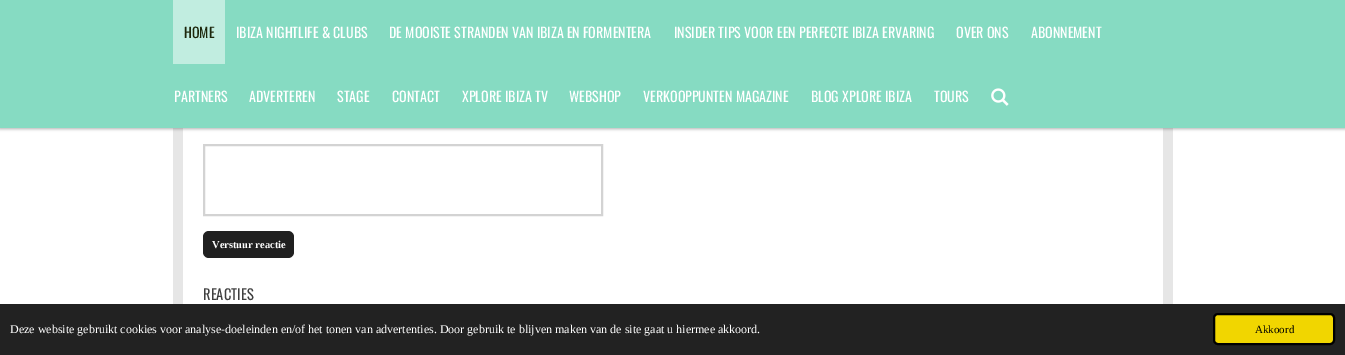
%!PS
<< /PageSize [1345 355] /PageUsesTransparency true >> setpagedevice
/rgb { 3 { 255 div 3 1 roll } repeat setrgbcolor } def
/font { [ exch dup neg 0 0 3 -1 roll 0 0 ] selectfont } def
/alpha { dup .setfillconstantalpha .setstrokeconstantalpha } def
/roundrect { 5 dict begin { /r /h /w /y /x } { exch def } forall
  x r add y moveto x w add y 2 copy h add r arct x w add y h add x 1 index r arct
  x y h add x y r arct x y 2 copy exch w add exch r arct closepath end } def
/shadow { 12 dict begin { /a /b /q /h /w /y /x } { exch def } forall gsave /was 0 def
  9 -2 -9 { dup b mul 4 div /e exch def 1 sub .425 mul 2.718 exch exp 1 add a .99 .min exch div /now exch def
    1 1 now sub 1 was sub div sub alpha /was now def
    w h .min e 2 mul add 0 gt { x e sub y e sub w e 2 mul add h e 2 mul add
      q e add b .6 mul add w h .min 2 div e add .min 0 .max roundrect fill } if } for grestore end } def
/picture { 5 dict begin { /h /w /y /x /name } { exch def } forall
  gsave x y translate w h scale
  w h 8 [w 0 0 h 0 0] name (r) file false 3 colorimage grestore end } def
0 .pushpdf14devicefilter
0 355 translate 1 -1 scale
4 setmiterlimit
255 255 255 rgb
0 0 1345 355 rectfill
230 230 230 rgb
173 128 1000 176 rectfill
255 255 255 rgb
183 128 980 176 rectfill
0 0 0 rgb
0 -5 1345 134 0 1.5 0.3 shadow
134 219 194 rgb
0 0 1345 128 rectfill
193 237 224 rgb
173 0 52 64 rectfill
(img/1.rgb) 991 88 18 18 picture
211 211 211 rgb
2 setlinewidth
204 145 398 70 rectstroke
32 32 32 rgb
203 231 91 27 6 roundrect fill
34 34 34 rgb
0 304 1345 51 rectfill
241 214 0 rgb
1214 314 120 30 4 roundrect gsave fill grestore
0 0 0 rgb
stroke
/Oswald-Regular 14 font
29 39 12 rgb
184 38 moveto (HOME) show
255 255 255 rgb
[
  [(IBIZA NIGHTLIFE & CLUBS) 236 38]
  [(DE MOOISTE STRANDEN VAN IBIZA EN FORMENTERA) 389 38]
  [(INSIDER TIPS VOOR EEN PERFECTE IBIZA ERVARING) 674 38]
  [(OVER ONS) 956 38]
  [(ABONNEMENT) 1031 38]
  [(PARTNERS) 174 102]
  [(ADVERTEREN) 249 102]
  [(STAGE) 337 102]
  [(CONTACT) 392 102]
  [(XPLORE IBIZA TV) 462 102]
  [(WEBSHOP) 569 102]
  [(VERKOOPPUNTEN MAGAZINE) 643 102]
  [(BLOG XPLORE IBIZA) 811 102]
  [(TOURS) 934 102]
] { aload pop moveto show } forall
/LiberationSerif-Bold 10.5 font
212 248 moveto (Verstuur reactie) show
/Oswald-Regular 14.5 font
64 64 64 rgb
203 300 moveto (REACTIES) show
/LiberationSerif-Regular 12 font
255 255 255 rgb
10 333 moveto (Deze website gebruikt cookies voor analyse-doeleinden en/of het tonen van advertenties. Door gebruik te blijven maken van de site gaat u hiermee akkoord.) show
/LiberationSerif-Regular 11 font
0 0 0 rgb
1255 333 moveto (Akkoord) show
.poppdf14devicefilter showpage
